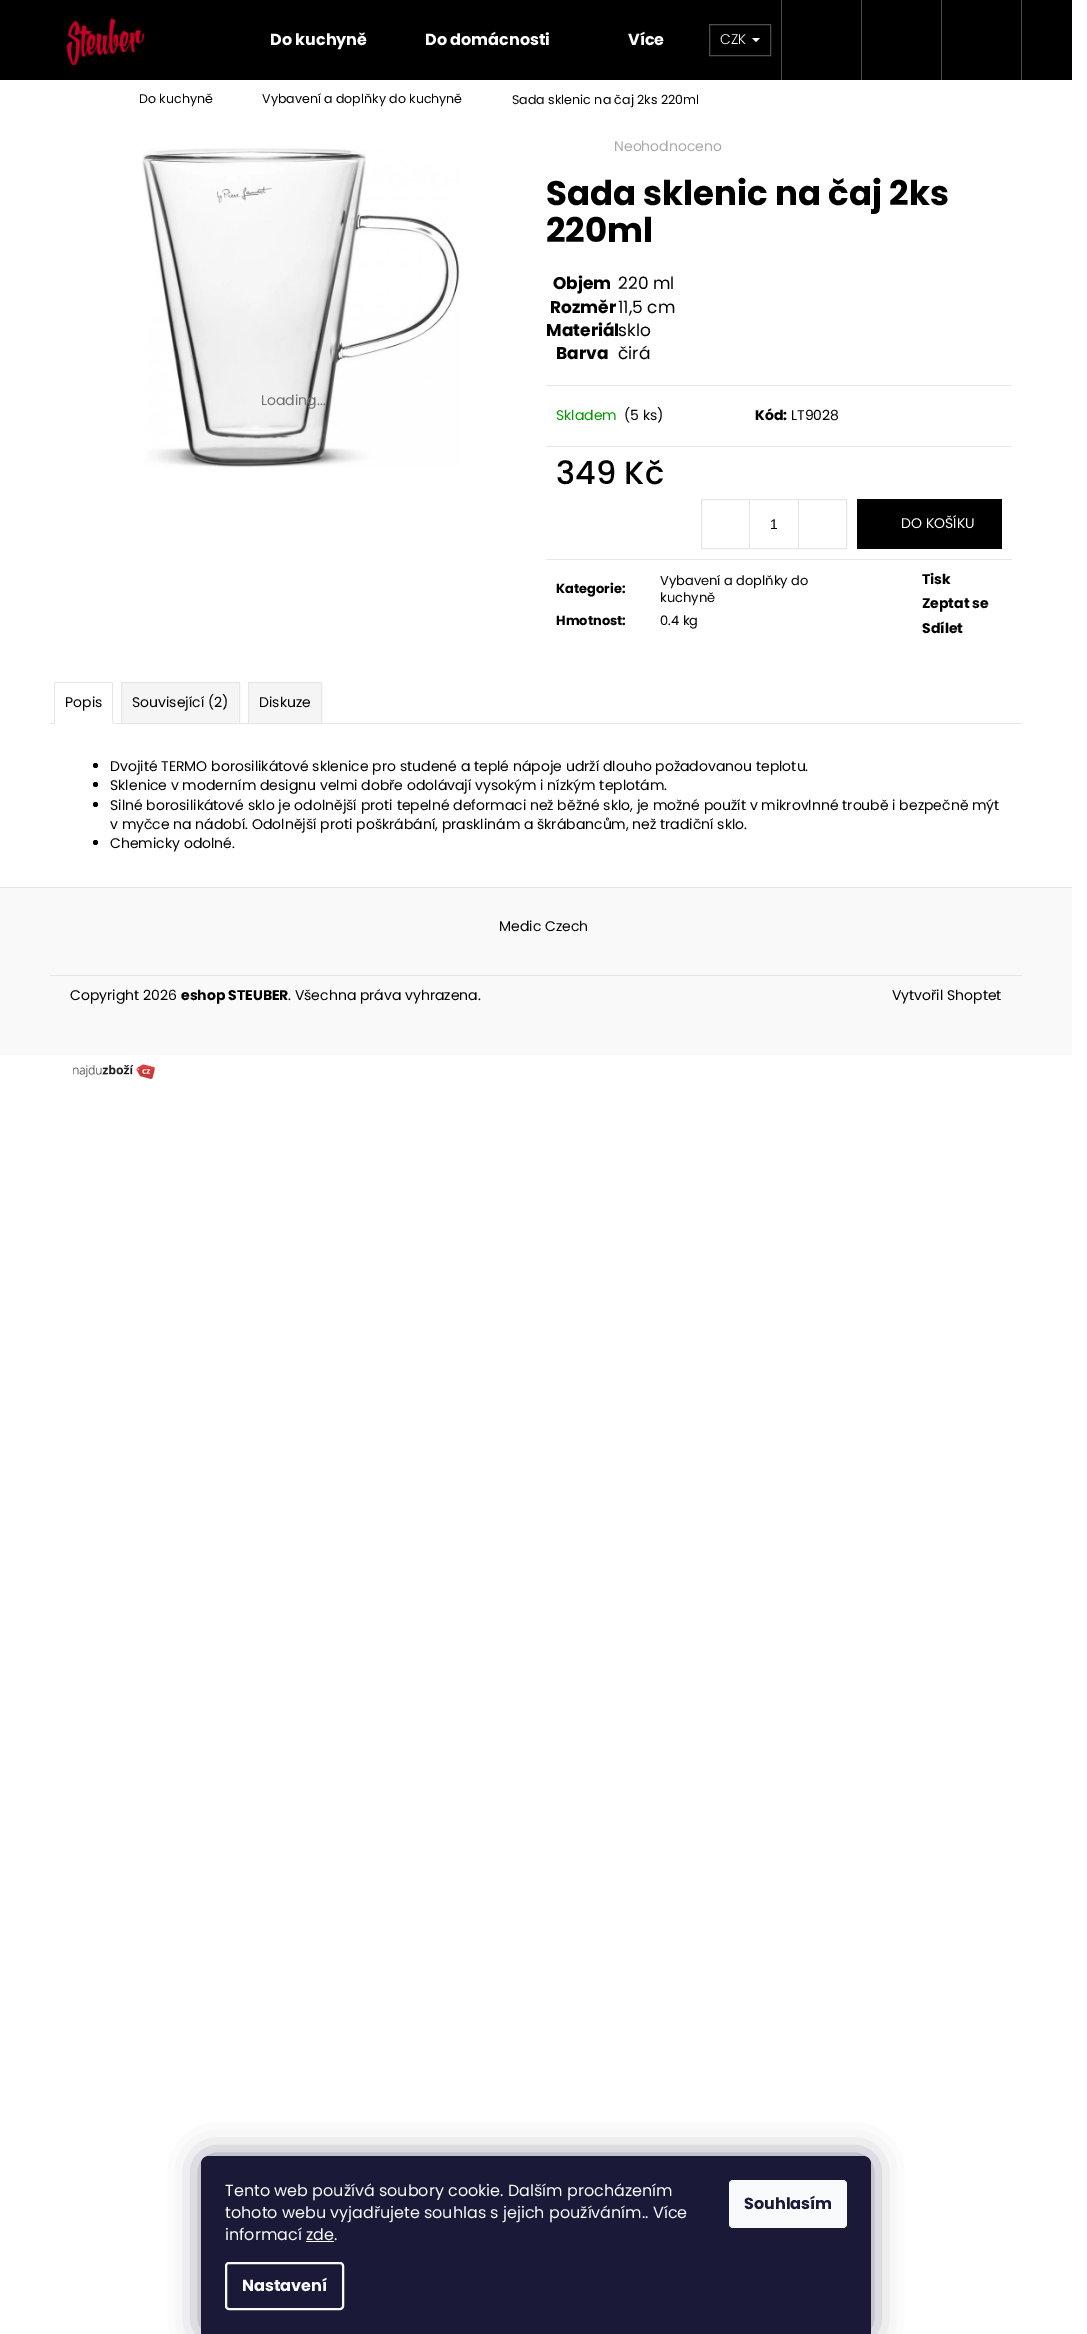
%!PS
<< /PageSize [1087 2334] /PageUsesTransparency true >> setpagedevice
/rgb { 3 { 255 div 3 1 roll } repeat setrgbcolor } def
/font { [ exch dup neg 0 0 3 -1 roll 0 0 ] selectfont } def
/alpha { dup .setfillconstantalpha .setstrokeconstantalpha } def
/circle { newpath 0 360 arc closepath } def
/roundrect { 5 dict begin { /r /h /w /y /x } { exch def } forall
  x r add y moveto x w add y 2 copy h add r arct x w add y h add x 1 index r arct
  x y h add x y r arct x y 2 copy exch w add exch r arct closepath end } def
/shadow { 12 dict begin { /a /b /q /h /w /y /x } { exch def } forall gsave /was 0 def
  9 -2 -9 { dup b mul 4 div /e exch def 1 sub .425 mul 2.718 exch exp 1 add a .99 .min exch div /now exch def
    1 1 now sub 1 was sub div sub alpha /was now def
    w h .min e 2 mul add 0 gt { x e sub y e sub w e 2 mul add h e 2 mul add
      q e add b .6 mul add w h .min 2 div e add .min 0 .max roundrect fill } if } for grestore end } def
/picture { 5 dict begin { /h /w /y /x /name } { exch def } forall
  gsave x y translate w h scale
  w h 8 [w 0 0 h 0 0] name (r) file false 3 colorimage grestore end } def
0 .pushpdf14devicefilter
0 2334 translate 1 -1 scale
4 setmiterlimit
255 255 255 rgb
0 0 1087 2334 rectfill
0 0 0 rgb
0 0 1072 80 rectfill
(img/1.rgb) 66 18 79 48 picture
77 77 77 rgb
1021 0 1 80 rectfill
709.5 24.5 61 31 rectstroke
255 255 255 rgb
752 38 moveto 760 38 lineto 756 42 lineto closepath fill
[
  [781 0 1 80 77 77 77]
  [861 0 1 80 77 77 77]
  [941 0 1 80 77 77 77]
] { aload pop rgb rectfill } forall
(img/2.rgb) 142 148 318 320 picture
[
  [546 385 466 1 231 231 231]
  [546 446 466 1 231 231 231]
  [546 559 466 1 231 231 231]
] { aload pop rgb rectfill } forall
230 230 230 rgb
701.5 499.5 145 49 rectstroke
[
  [749 500 1 48 230 230 230]
  [798 500 1 48 230 230 230]
  [857 499 145 50 0 0 0]
  [50 723 972 1 231 231 231]
  [54 682 59 1 231 231 231]
  [112 682 1 42 231 231 231]
  [54 723 59 1 255 255 255]
  [54 682 1 42 231 231 231]
] { aload pop rgb rectfill } forall
245 245 245 rgb
121.5 682.5 moveto 239.5 682.5 lineto 239.5 723.5 lineto 121.5 723.5 lineto closepath gsave fill grestore
231 231 231 rgb
stroke
245 245 245 rgb
248.5 682.5 moveto 321.5 682.5 lineto 321.5 723.5 lineto 248.5 723.5 lineto closepath gsave fill grestore
231 231 231 rgb
stroke
0 0 0 rgb
95.5 765.5 2.5 circle fill
95.5 784.5 2.5 circle fill
95.5 804.5 2.5 circle fill
95.5 842.5 2.5 circle fill
[
  [0 888 1072 167 249 249 249]
  [0 887 1072 1 230 230 230]
  [50 975 972 1 230 230 230]
] { aload pop rgb rectfill } forall
(img/3.rgb) 73 1064 82 15 picture
27 25 57 rgb
201 2156 670 178 8 15 0.5 shadow
26 25 55 rgb
209 2156 moveto 863 2156 lineto 867.5 2156 871 2159.5 871 2164 curveto 871 2334 lineto 201 2334 lineto 201 2164 lineto 201 2159.5 204.5 2156 209 2156 curveto closepath fill
248 250 251 rgb
306 2241 28 1 rectfill
2 setlinewidth
226 2263 117 46 3 roundrect stroke
729 2180 118 48 4 roundrect fill
/Poppins-Bold 16 font
255 255 255 rgb
[
  [(Do kuchyně) 270 45]
  [(Do domácnosti) 425 45]
  [(Více) 628 45]
] { aload pop moveto show } forall
/Poppins-Light 14 font
720 44 moveto (CZK) show
/Poppins-Regular 12.6 font
0 0 0 rgb
[
  [(Do kuchyně) 139 103]
  [(Vybavení a doplňky do kuchyně) 262 103]
  [(Sada sklenic na čaj 2ks 220ml) 512 104]
] { aload pop moveto show } forall
/Poppins-Regular 14 font
113 113 113 rgb
261 405 moveto (Loading...) show
170 170 170 rgb
614 151 moveto (Neohodnoceno) show
/Poppins-Bold 34 font
0 0 0 rgb
546 205 moveto (Sada sklenic na čaj 2ks) show
546 242 moveto (220ml) show
/Poppins-Bold 17 font
553 289 moveto (Objem) show
/Poppins-Regular 17 font
618 289 moveto (220 ml) show
/Poppins-Bold 17 font
550 313 moveto (Rozměr) show
/Poppins-Regular 17 font
618 313 moveto (11,5 cm) show
/Poppins-Bold 17 font
546 336 moveto (Materiál) show
/Poppins-Regular 17 font
618 336 moveto (sklo) show
/Poppins-Bold 17 font
556 359 moveto (Barva) show
/Poppins-Regular 17 font
618 359 moveto (čirá) show
/Poppins-Regular 14 font
0 153 1 rgb
556 420 moveto (Skladem) show
0 0 0 rgb
624 420 moveto (\(5 ks\)) show
/Poppins-Bold 14 font
755 420 moveto (Kód:) show
/Poppins-Regular 14 font
791 420 moveto (LT9028) show
/Poppins-Medium 32 font
556 484 moveto (349 Kč) show
/LiberationSans-Regular 14 font
770 529 moveto (1) show
/Poppins-Regular 14 font
255 255 255 rgb
901 528 moveto (DO KOŠÍKU) show
/Poppins-Bold 13 font
0 0 0 rgb
556 593 moveto (Kategorie:) show
/Poppins-Regular 13 font
660 585 moveto (Vybavení a doplňky do) show
660 602 moveto (kuchyně) show
/Poppins-Bold 13 font
556 625 moveto (Hmotnost:) show
/Poppins-Regular 13 font
660 625 moveto (0.4 kg) show
/Poppins-Bold 14 font
[
  [(Tisk) 922 584]
  [(Zeptat se) 922 608]
  [(Sdílet) 922 633]
] { aload pop moveto show } forall
/Poppins-Regular 14 font
[
  [(Popis) 65 707]
  [(Související \(2\)) 132 707]
  [(Diskuze) 259 707]
  [(Dvojité TERMO borosilikátové sklenice pro studené a teplé nápoje udrží dlouho požadovanou teplotu.) 110 771]
  [(Sklenice v moderním designu velmi dobře odolávají vysokým i nízkým teplotám.) 110 790]
  [(Silné borosilikátové sklo je odolnější proti tepelné deformaci než běžné sklo, je možné použít v mikrovlnné troubě i bezpečně mýt) 110 810]
  [(v myčce na nádobí. Odolnější proti poškrábání, prasklinám a škrábancům, než tradiční sklo.) 110 829]
  [(Chemicky odolné.) 110 848]
  [(Medic Czech) 499 931]
  [(Copyright 2026) 70 1000]
] { aload pop moveto show } forall
/Poppins-Bold 14 font
181 1000 moveto (eshop STEUBER) show
/Poppins-Regular 14 font
288 1000 moveto (. Všechna práva vyhrazena.) show
892 1000 moveto (Vytvořil Shoptet) show
/Poppins-Regular 16 font
248 250 251 rgb
[
  [(Tento web používá soubory cookie. Dalším procházením) 225 2196]
  [(tohoto webu vyjadřujete souhlas s jejich používáním.. Více) 225 2218]
  [(informací zde.) 225 2240]
] { aload pop moveto show } forall
/Poppins-Bold 16 font
242 2291 moveto (Nastavení) show
26 25 55 rgb
744 2209 moveto (Souhlasím) show
.poppdf14devicefilter showpage
